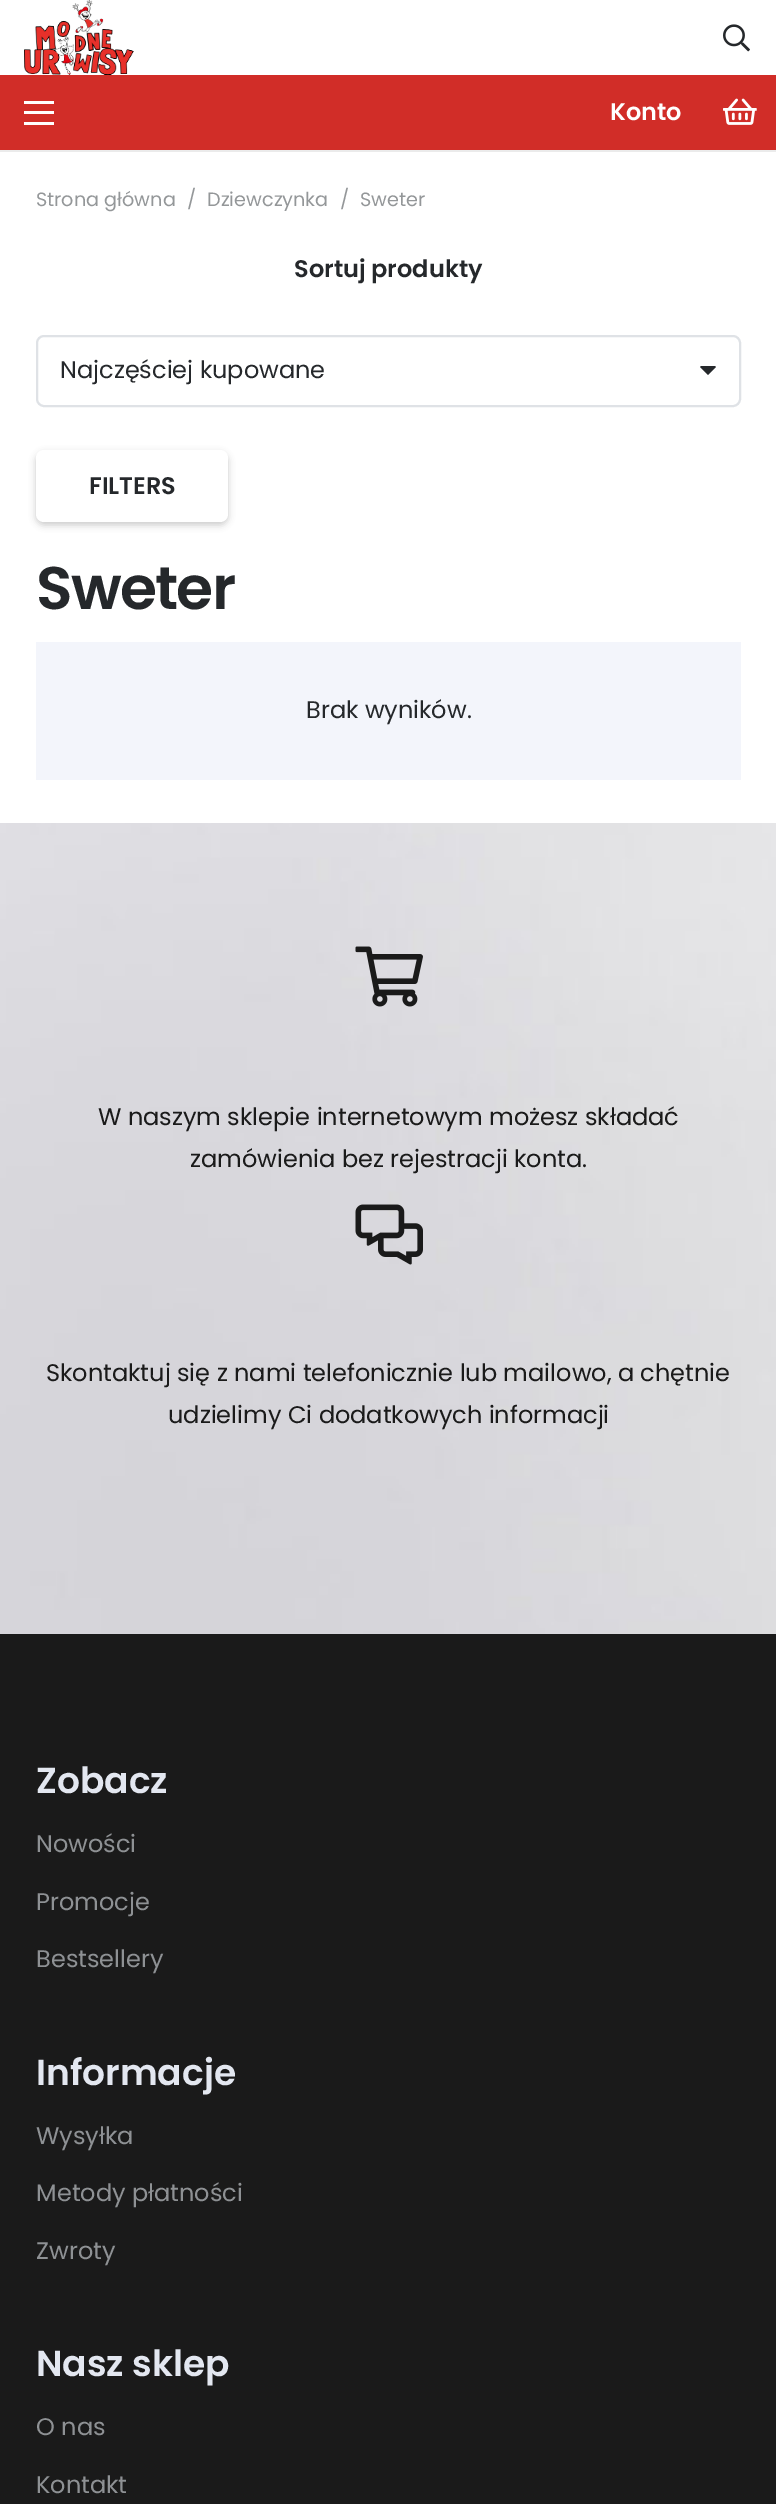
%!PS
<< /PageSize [776 2504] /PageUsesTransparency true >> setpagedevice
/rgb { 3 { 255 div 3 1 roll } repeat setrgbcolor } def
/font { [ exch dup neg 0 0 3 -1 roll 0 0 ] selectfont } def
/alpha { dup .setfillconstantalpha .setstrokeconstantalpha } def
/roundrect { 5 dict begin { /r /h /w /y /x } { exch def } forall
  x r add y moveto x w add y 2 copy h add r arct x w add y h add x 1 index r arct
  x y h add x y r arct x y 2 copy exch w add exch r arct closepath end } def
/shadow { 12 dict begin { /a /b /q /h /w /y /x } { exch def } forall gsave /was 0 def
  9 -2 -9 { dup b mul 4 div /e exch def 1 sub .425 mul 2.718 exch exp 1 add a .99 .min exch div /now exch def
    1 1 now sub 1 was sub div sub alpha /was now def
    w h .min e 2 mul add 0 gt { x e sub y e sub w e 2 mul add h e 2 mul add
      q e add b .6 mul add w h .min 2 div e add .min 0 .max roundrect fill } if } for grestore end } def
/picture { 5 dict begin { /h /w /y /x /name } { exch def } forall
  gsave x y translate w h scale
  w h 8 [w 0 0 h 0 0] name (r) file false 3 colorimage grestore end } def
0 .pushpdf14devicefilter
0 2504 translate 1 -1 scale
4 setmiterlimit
255 255 255 rgb
0 0 776 2504 rectfill
(img/1.rgb) 24 0 110 75 picture
(img/2.rgb) 723 24 27 28 picture
[
  [0 150 776 2 235 235 235]
  [0 75 776 75 209 45 40]
  [24 111 30 3 255 255 255]
  [24 101 30 3 255 255 255]
  [24 122 30 3 255 255 255]
] { aload pop rgb rectfill } forall
(img/3.rgb) 723 98 34 27 picture
223 226 230 rgb
2 setlinewidth
37 336 703 70 7 roundrect stroke
37 40 43 rgb
702 366 moveto 701 366 700.5 366.5 700 367 curveto 708 375 lineto 716 367 lineto 715.5 366.5 715 366 714 366 curveto closepath fill
0 0 0 rgb
36 453 192 72 8 3.5 0.2 shadow
255 255 255 rgb
36 450 192 72 8 roundrect fill
243 245 251 rgb
36 642 705 138 rectfill
(img/4.rgb) 0 823 776 811 picture
(img/5.rgb) 355 946 68 61 picture
(img/6.rgb) 355 1204 68 61 picture
26 26 26 rgb
0 1634 776 870 rectfill
/Poppins-SemiBold 24 font
255 255 255 rgb
610 120 moveto (Konto) show
/Poppins-Regular 19.25 font
148 151 153 rgb
[
  [(Strona główna) 36 206]
  [(/) 187 206]
  [(Dziewczynka) 207 206]
  [(/) 340 206]
  [(Sweter) 360 206]
] { aload pop moveto show } forall
/Poppins-SemiBold 24 font
37 40 43 rgb
294 277 moveto (Sortuj produkty) show
/Poppins-Regular 24 font
60 378 moveto (Najczęściej kupowane) show
/Poppins-SemiBold 24 font
89 494 moveto (FILTERS) show
/Poppins-SemiBold 60 font
36 609 moveto -1.75 0 (Sweter) ashow
/Poppins-Regular 24 font
306 718 moveto (Brak wyników.) show
26 26 26 rgb
[
  [(W naszym sklepie internetowym możesz składać) 98 1125]
  [(zamówienia bez rejestracji konta.) 190 1167]
  [(Skontaktuj się z nami telefonicznie lub mailowo, a chętnie) 46 1381]
  [(udzielimy Ci dodatkowych informacji) 168 1423]
] { aload pop moveto show } forall
/Poppins-SemiBold 36 font
227 231 240 rgb
36 1793 moveto (Zobacz) show
/Poppins-Regular 24 font
142 145 148 rgb
[
  [(Nowości) 36 1852]
  [(Promocje) 36 1910]
  [(Bestsellery) 36 1967]
] { aload pop moveto show } forall
/Poppins-SemiBold 36 font
227 231 240 rgb
36 2085 moveto (Informacje) show
/Poppins-Regular 24 font
142 145 148 rgb
[
  [(Wysyłka) 36 2144]
  [(Metody płatności) 36 2201]
  [(Zwroty) 36 2259]
] { aload pop moveto show } forall
/Poppins-SemiBold 36 font
227 231 240 rgb
36 2376 moveto (Nasz sklep) show
/Poppins-Regular 24 font
142 145 148 rgb
36 2435 moveto (O nas) show
36 2493 moveto (Kontakt) show
.poppdf14devicefilter showpage
